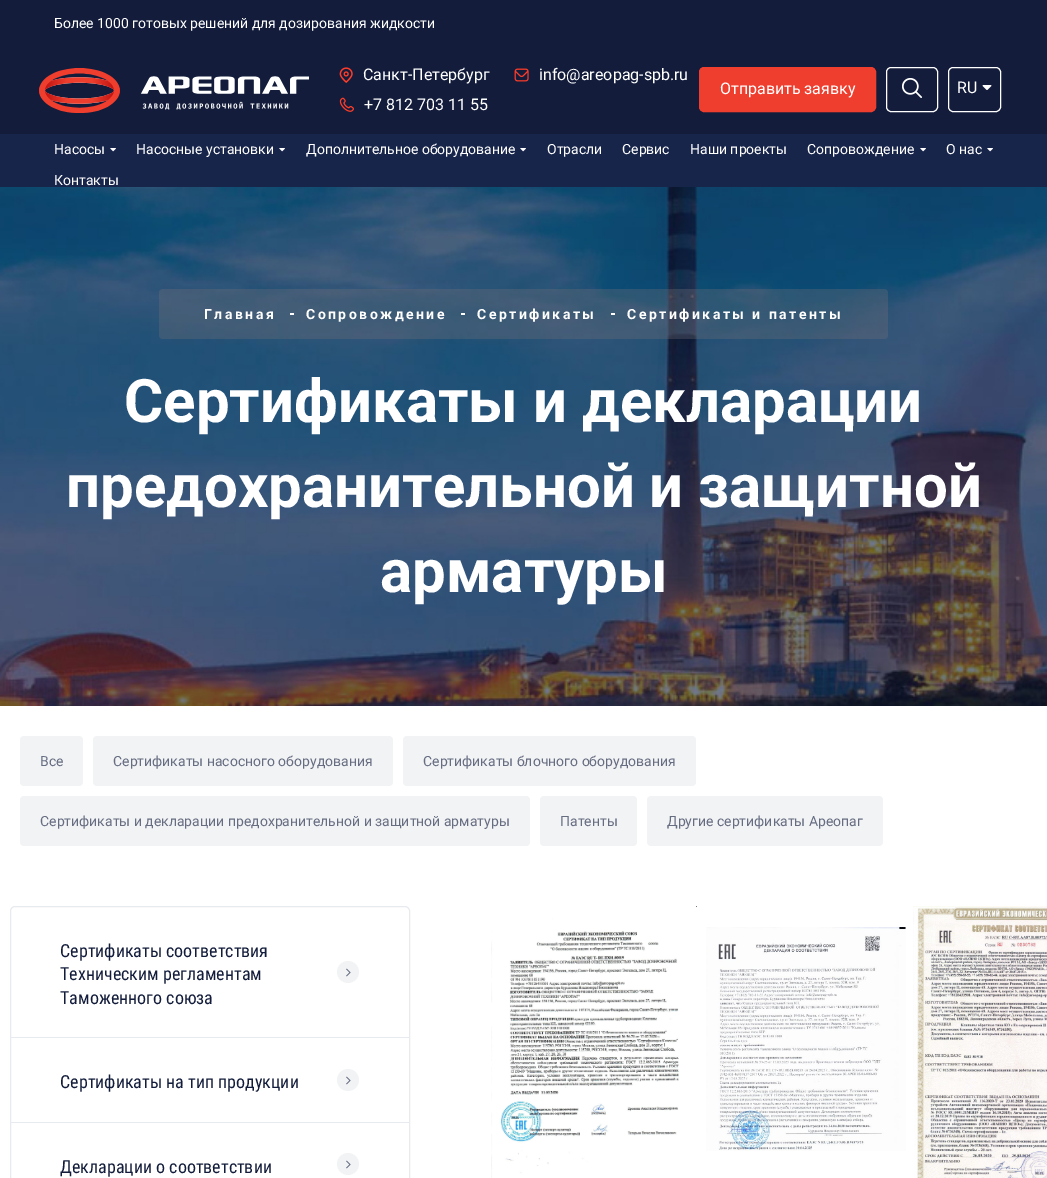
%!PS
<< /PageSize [1047 1178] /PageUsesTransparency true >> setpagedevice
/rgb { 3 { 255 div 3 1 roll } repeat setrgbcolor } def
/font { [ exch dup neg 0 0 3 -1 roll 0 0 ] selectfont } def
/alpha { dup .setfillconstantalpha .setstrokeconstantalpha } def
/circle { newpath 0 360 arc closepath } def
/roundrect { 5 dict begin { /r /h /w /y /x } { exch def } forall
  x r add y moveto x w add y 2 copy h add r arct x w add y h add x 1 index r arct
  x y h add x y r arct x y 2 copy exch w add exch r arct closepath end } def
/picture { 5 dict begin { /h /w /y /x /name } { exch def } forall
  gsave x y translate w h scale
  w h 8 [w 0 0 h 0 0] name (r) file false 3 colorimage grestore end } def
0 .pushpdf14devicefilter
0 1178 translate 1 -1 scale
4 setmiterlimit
255 255 255 rgb
0 0 1047 1178 rectfill
19 29 59 rgb
0 0 1047 134 rectfill
(img/1.rgb) 39 68 270 45 picture
(img/2.rgb) 339 67 14 16 picture
(img/3.rgb) 514 68 15 14 picture
(img/4.rgb) 339 97 15 15 picture
239 62 46 rgb
699.5 67.5 176 44 4.5 roundrect gsave fill grestore
stroke
255 255 255 rgb
886.5 67.5 51 44 4.5 roundrect stroke
(img/5.rgb) 902 78 20 20 picture
948.5 67.5 52 44 4.5 roundrect stroke
(img/6.rgb) 982 85 10 5 picture
24 37 75 rgb
0 134 1047 53 rectfill
(img/7.rgb) 110 148 6 4 picture
(img/7.rgb) 279 148 6 4 picture
(img/7.rgb) 520 148 6 4 picture
(img/7.rgb) 920 148 6 4 picture
(img/7.rgb) 987 148 6 4 picture
(img/8.rgb) 0 187 1047 519 picture
0.32 alpha
115 111 118 rgb
159 289 729 50 4 roundrect fill
1 alpha
[
  [290 313 4 2 255 255 255]
  [461 313 4 2 255 255 255]
  [611 313 4 2 255 255 255]
] { aload pop rgb rectfill } forall
242 243 245 rgb
20 736 63 50 4 roundrect fill
93 736 300 50 4 roundrect fill
403 736 293 50 4 roundrect fill
20 796 510 50 4 roundrect fill
540 796 97 50 4 roundrect fill
647 796 236 50 4 roundrect fill
231 234 238 rgb
10.5 906.5 399 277 4.5 roundrect stroke
11 1037 398 1 rectfill
242 243 245 rgb
348 972 11 circle fill
(img/9.rgb) 346 968 5 9 picture
231 234 238 rgb
11 1122 398 1 rectfill
242 243 245 rgb
348 1080 11 circle fill
(img/9.rgb) 346 1076 5 9 picture
348 1164 11 circle fill
(img/9.rgb) 346 1160 5 9 picture
(img/10.rgb) 491 906 206 272 picture
(img/11.rgb) 706 927 200 224 picture
(img/12.rgb) 913 906 134 272 picture
/Roboto-Regular 14 font
255 255 255 rgb
54 28 moveto (Более 1000 готовых решений для дозирования жидкости) show
/Roboto-Regular 16 font
[
  [(Санкт-Петербург) 363 80]
  [(info@areopag-spb.ru) 539 80]
  [(+7 812 703 11 55) 364 110]
  [(Отправить заявку) 720 94]
  [(RU) 957 93]
] { aload pop moveto show } forall
/Roboto-Regular 14 font
[
  [(Насосы) 54 154]
  [(Насосные установки) 136 154]
  [(Дополнительное оборудование) 306 154]
  [(Отрасли) 547 154]
  [(Сервис) 622 154]
  [(Наши проекты) 690 154]
  [(Сопровождение) 807 154]
  [(О нас) 946 154]
  [(Контакты) 54 185]
] { aload pop moveto show } forall
/Roboto-Bold 14 font
204 319 moveto 2.5 0 (Главная) ashow
306 319 moveto 2.5 0 (Сопровождение) ashow
477 319 moveto 2.5 0 (Сертификаты) ashow
627 319 moveto 2.5 0 (Сертификаты и патенты) ashow
/Roboto-Bold 60 font
[
  [(Сертификаты и декларации) 124 422]
  [(предохранительной и защитной) 66 507]
  [(арматуры) 380 592]
] { aload pop moveto show } forall
/Roboto-Regular 14 font
102 109 129 rgb
[
  [(Все) 40 766]
  [(Сертификаты насосного оборудования) 113 766]
  [(Сертификаты блочного оборудования) 423 766]
  [(Сертификаты и декларации предохранительной и защитной арматуры) 40 826]
  [(Патенты) 560 826]
  [(Другие сертификаты Ареопаг) 667 826]
] { aload pop moveto show } forall
/RobotoCondensed-Regular 18 font
19 29 59 rgb
[
  [(Сертификаты соответствия) 60 957]
  [(Техническим регламентам) 60 980]
  [(Таможенного союза) 60 1004]
  [(Сертификаты на тип продукции) 60 1088]
  [(Декларации о соответствии) 60 1173]
] { aload pop moveto show } forall
.poppdf14devicefilter showpage
